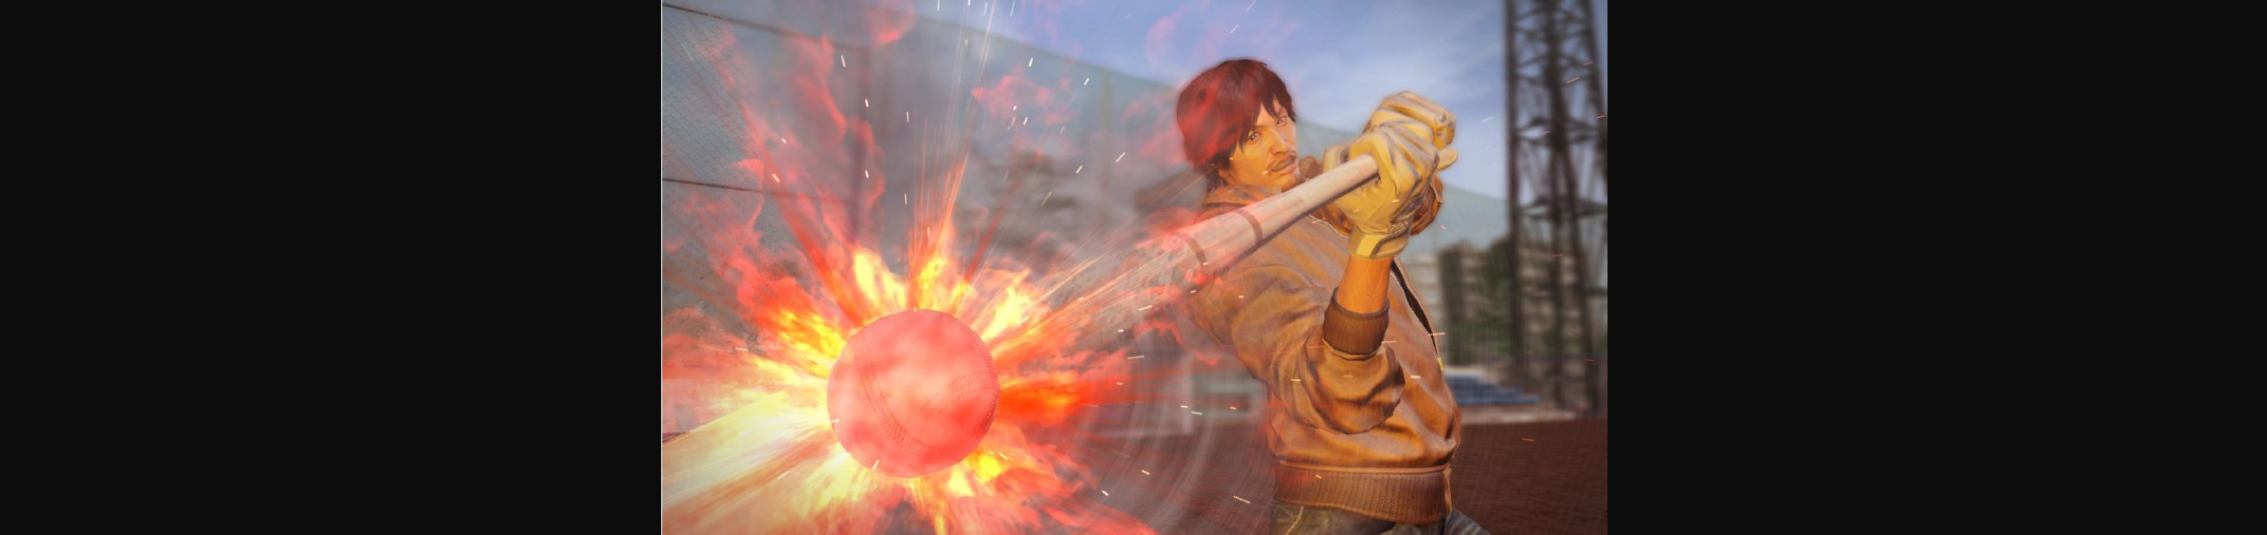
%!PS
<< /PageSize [2267 535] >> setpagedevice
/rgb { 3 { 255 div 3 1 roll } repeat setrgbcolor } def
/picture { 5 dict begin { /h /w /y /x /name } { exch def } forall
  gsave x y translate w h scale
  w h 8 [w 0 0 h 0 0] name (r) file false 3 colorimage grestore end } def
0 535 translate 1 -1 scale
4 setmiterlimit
12 12 12 rgb
0 0 2267 535 rectfill
(img/1.rgb) 661 0 947 535 picture
showpage
